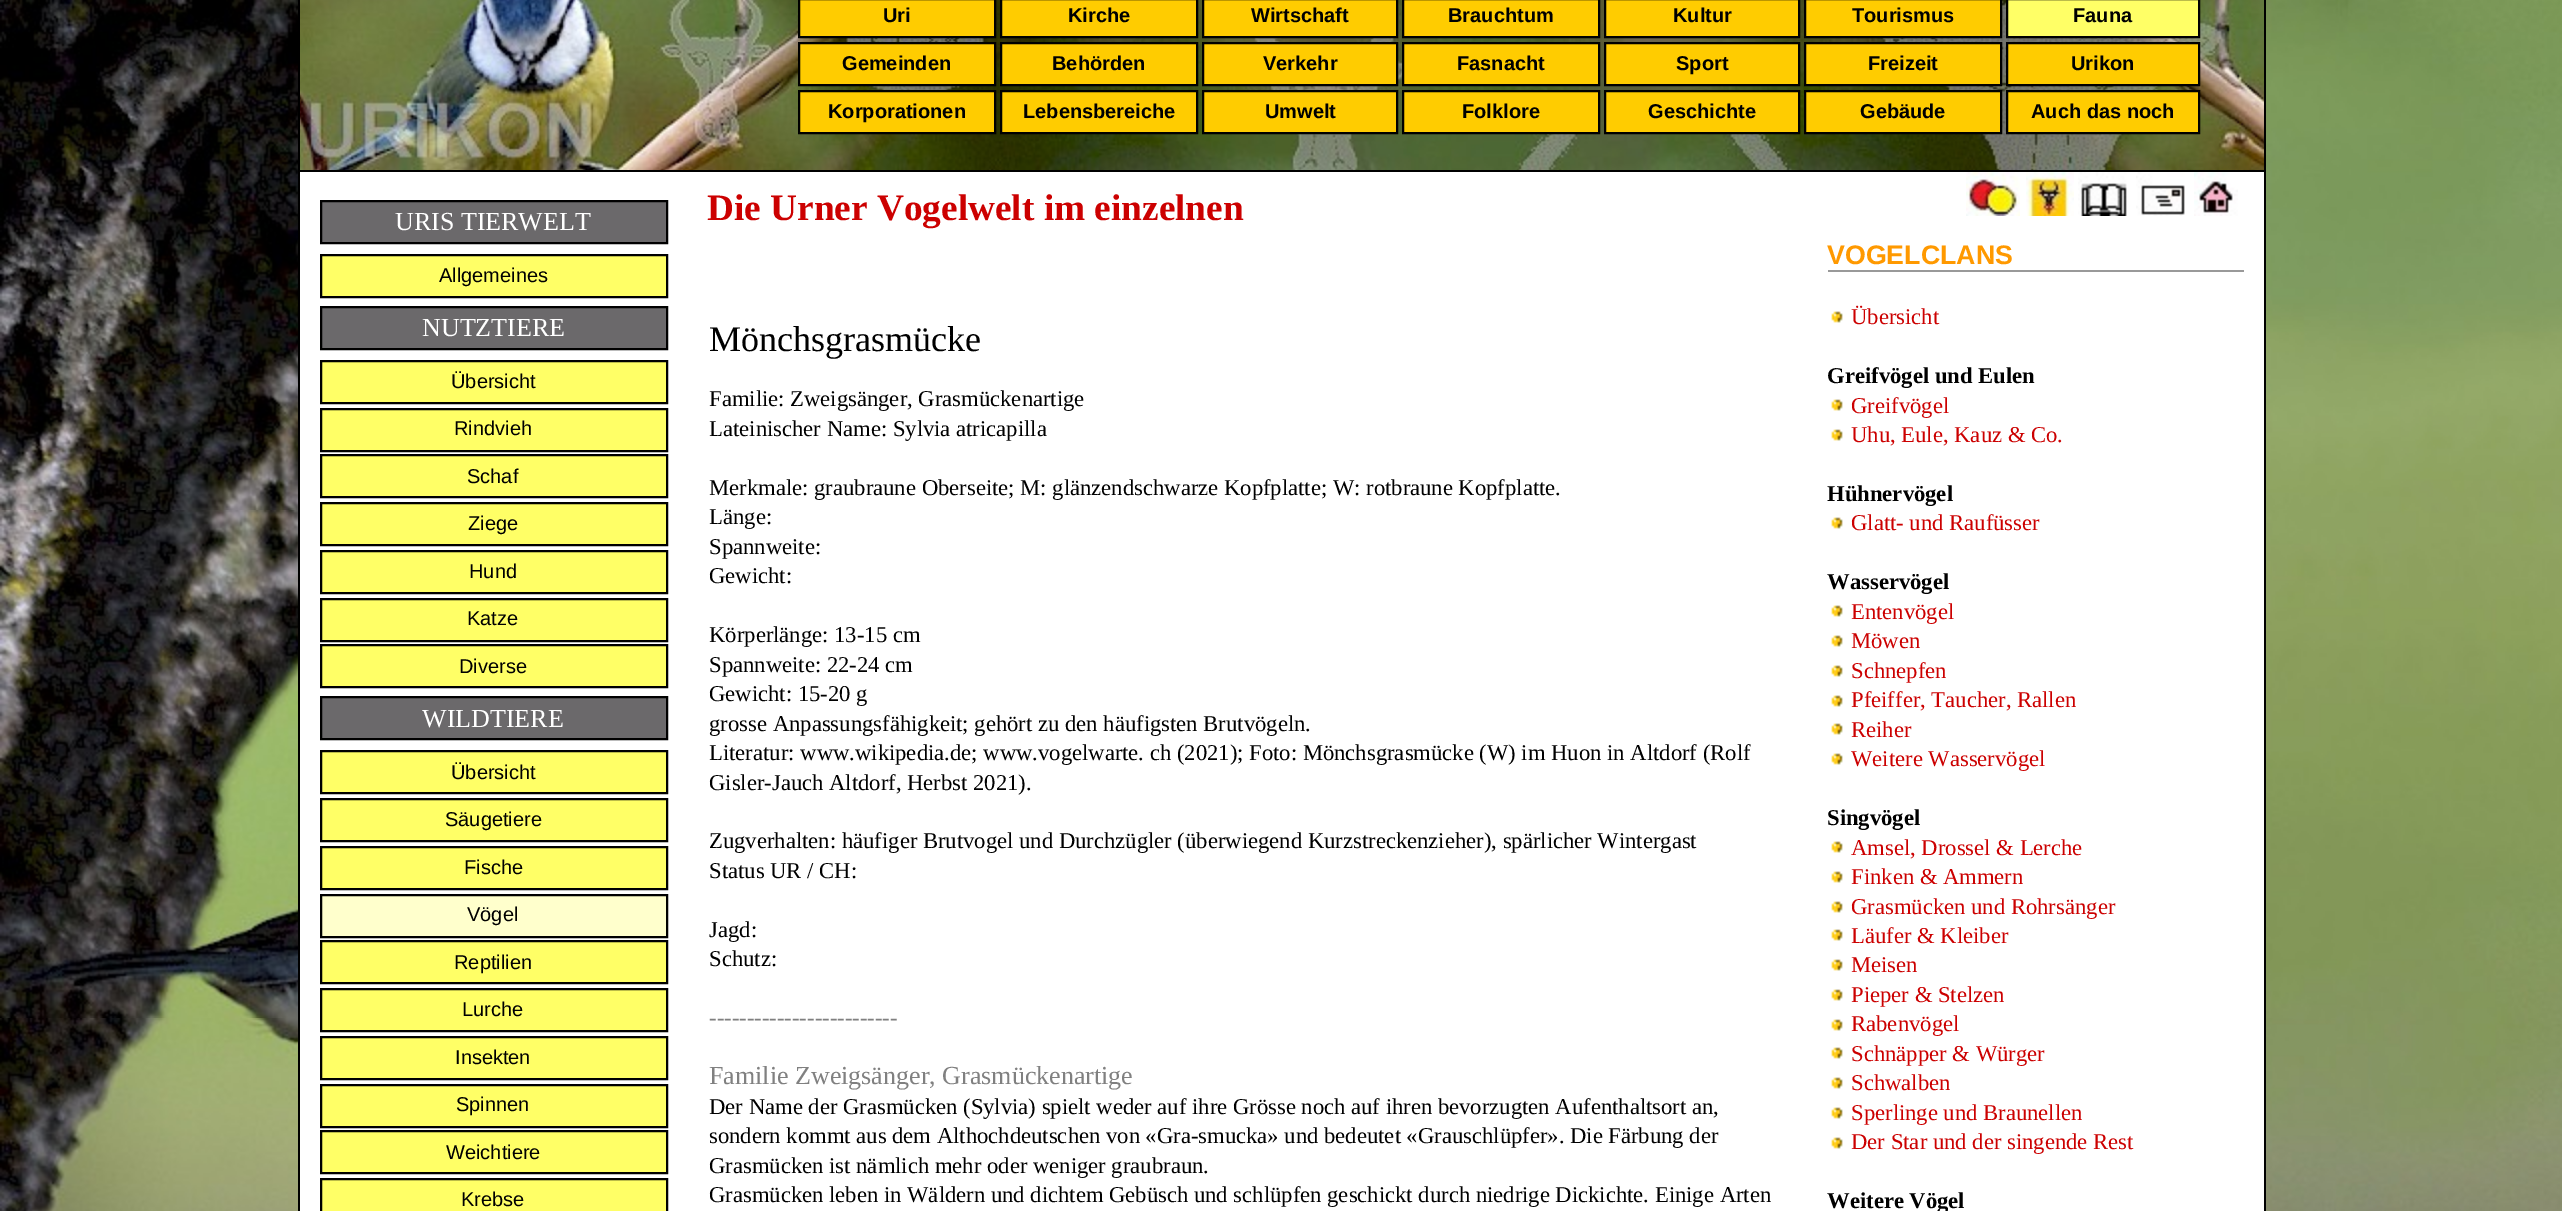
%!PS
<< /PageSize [2562 1211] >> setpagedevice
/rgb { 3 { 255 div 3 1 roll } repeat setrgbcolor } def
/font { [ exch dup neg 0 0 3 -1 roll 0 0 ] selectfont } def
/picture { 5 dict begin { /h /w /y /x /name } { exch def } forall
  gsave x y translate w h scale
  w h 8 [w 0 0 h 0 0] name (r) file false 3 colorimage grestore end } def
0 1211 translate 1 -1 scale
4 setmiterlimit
255 255 255 rgb
0 0 2562 1211 rectfill
(img/1.rgb) 0 0 2562 1211 picture
(img/2.rgb) 298 0 1968 172 picture
255 204 0 rgb
799 -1 moveto 995 -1 lineto 995 37 lineto 799 37 lineto closepath gsave fill grestore
0 0 0 rgb
2 setlinewidth
stroke
255 204 0 rgb
1001 -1 moveto 1197 -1 lineto 1197 37 lineto 1001 37 lineto closepath gsave fill grestore
0 0 0 rgb
stroke
255 204 0 rgb
1203 -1 moveto 1397 -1 lineto 1397 37 lineto 1203 37 lineto closepath gsave fill grestore
0 0 0 rgb
stroke
255 204 0 rgb
1403 -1 moveto 1599 -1 lineto 1599 37 lineto 1403 37 lineto closepath gsave fill grestore
0 0 0 rgb
stroke
255 204 0 rgb
1605 -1 moveto 1799 -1 lineto 1799 37 lineto 1605 37 lineto closepath gsave fill grestore
0 0 0 rgb
stroke
255 204 0 rgb
1805 -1 moveto 2001 -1 lineto 2001 37 lineto 1805 37 lineto closepath gsave fill grestore
0 0 0 rgb
stroke
255 255 102 rgb
2007 -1 moveto 2199 -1 lineto 2199 37 lineto 2007 37 lineto closepath gsave fill grestore
0 0 0 rgb
stroke
255 204 0 rgb
799 43 moveto 995 43 lineto 995 85 lineto 799 85 lineto closepath gsave fill grestore
0 0 0 rgb
stroke
255 204 0 rgb
1001 43 moveto 1197 43 lineto 1197 85 lineto 1001 85 lineto closepath gsave fill grestore
0 0 0 rgb
stroke
255 204 0 rgb
1203 43 moveto 1397 43 lineto 1397 85 lineto 1203 85 lineto closepath gsave fill grestore
0 0 0 rgb
stroke
255 204 0 rgb
1403 43 moveto 1599 43 lineto 1599 85 lineto 1403 85 lineto closepath gsave fill grestore
0 0 0 rgb
stroke
255 204 0 rgb
1605 43 moveto 1799 43 lineto 1799 85 lineto 1605 85 lineto closepath gsave fill grestore
0 0 0 rgb
stroke
255 204 0 rgb
1805 43 moveto 2001 43 lineto 2001 85 lineto 1805 85 lineto closepath gsave fill grestore
0 0 0 rgb
stroke
255 204 0 rgb
2007 43 moveto 2199 43 lineto 2199 85 lineto 2007 85 lineto closepath gsave fill grestore
0 0 0 rgb
stroke
255 204 0 rgb
799 91 moveto 995 91 lineto 995 133 lineto 799 133 lineto closepath gsave fill grestore
0 0 0 rgb
stroke
255 204 0 rgb
1001 91 moveto 1197 91 lineto 1197 133 lineto 1001 133 lineto closepath gsave fill grestore
0 0 0 rgb
stroke
255 204 0 rgb
1203 91 moveto 1397 91 lineto 1397 133 lineto 1203 133 lineto closepath gsave fill grestore
0 0 0 rgb
stroke
255 204 0 rgb
1403 91 moveto 1599 91 lineto 1599 133 lineto 1403 133 lineto closepath gsave fill grestore
0 0 0 rgb
stroke
255 204 0 rgb
1605 91 moveto 1799 91 lineto 1799 133 lineto 1605 133 lineto closepath gsave fill grestore
0 0 0 rgb
stroke
255 204 0 rgb
1805 91 moveto 2001 91 lineto 2001 133 lineto 1805 133 lineto closepath gsave fill grestore
0 0 0 rgb
stroke
255 204 0 rgb
2007 91 moveto 2199 91 lineto 2199 133 lineto 2007 133 lineto closepath gsave fill grestore
0 0 0 rgb
stroke
255 255 255 rgb
300 172 1964 1039 rectfill
0 0 0 rgb
298 172 2 1039 rectfill
107 105 107 rgb
321 201 moveto 667 201 lineto 667 243 lineto 321 243 lineto closepath gsave fill grestore
0 0 0 rgb
stroke
255 255 102 rgb
321 255 moveto 667 255 lineto 667 297 lineto 321 297 lineto closepath gsave fill grestore
0 0 0 rgb
stroke
107 105 107 rgb
321 307 moveto 667 307 lineto 667 349 lineto 321 349 lineto closepath gsave fill grestore
0 0 0 rgb
stroke
255 255 102 rgb
321 361 moveto 667 361 lineto 667 403 lineto 321 403 lineto closepath gsave fill grestore
0 0 0 rgb
stroke
255 255 102 rgb
321 409 moveto 667 409 lineto 667 451 lineto 321 451 lineto closepath gsave fill grestore
0 0 0 rgb
stroke
255 255 102 rgb
321 455 moveto 667 455 lineto 667 497 lineto 321 497 lineto closepath gsave fill grestore
0 0 0 rgb
stroke
255 255 102 rgb
321 503 moveto 667 503 lineto 667 545 lineto 321 545 lineto closepath gsave fill grestore
0 0 0 rgb
stroke
255 255 102 rgb
321 551 moveto 667 551 lineto 667 593 lineto 321 593 lineto closepath gsave fill grestore
0 0 0 rgb
stroke
255 255 102 rgb
321 599 moveto 667 599 lineto 667 641 lineto 321 641 lineto closepath gsave fill grestore
0 0 0 rgb
stroke
255 255 102 rgb
321 645 moveto 667 645 lineto 667 687 lineto 321 687 lineto closepath gsave fill grestore
0 0 0 rgb
stroke
107 105 107 rgb
321 697 moveto 667 697 lineto 667 739 lineto 321 739 lineto closepath gsave fill grestore
0 0 0 rgb
stroke
255 255 102 rgb
321 751 moveto 667 751 lineto 667 793 lineto 321 793 lineto closepath gsave fill grestore
0 0 0 rgb
stroke
255 255 102 rgb
321 799 moveto 667 799 lineto 667 841 lineto 321 841 lineto closepath gsave fill grestore
0 0 0 rgb
stroke
255 255 102 rgb
321 847 moveto 667 847 lineto 667 889 lineto 321 889 lineto closepath gsave fill grestore
0 0 0 rgb
stroke
255 255 204 rgb
321 895 moveto 667 895 lineto 667 937 lineto 321 937 lineto closepath gsave fill grestore
0 0 0 rgb
stroke
255 255 102 rgb
321 941 moveto 667 941 lineto 667 983 lineto 321 983 lineto closepath gsave fill grestore
0 0 0 rgb
stroke
255 255 102 rgb
321 989 moveto 667 989 lineto 667 1031 lineto 321 1031 lineto closepath gsave fill grestore
0 0 0 rgb
stroke
255 255 102 rgb
321 1037 moveto 667 1037 lineto 667 1079 lineto 321 1079 lineto closepath gsave fill grestore
0 0 0 rgb
stroke
255 255 102 rgb
321 1085 moveto 667 1085 lineto 667 1127 lineto 321 1127 lineto closepath gsave fill grestore
0 0 0 rgb
stroke
255 255 102 rgb
321 1131 moveto 667 1131 lineto 667 1173 lineto 321 1173 lineto closepath gsave fill grestore
0 0 0 rgb
stroke
255 255 102 rgb
321 1179 moveto 667 1179 lineto 667 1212 lineto 321 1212 lineto closepath gsave fill grestore
0 0 0 rgb
stroke
2264 172 2 1039 rectfill
(img/3.rgb) 1966 172 54 44 picture
(img/4.rgb) 2026 172 48 44 picture
(img/5.rgb) 2078 172 49 44 picture
(img/6.rgb) 2136 172 49 44 picture
(img/7.rgb) 2194 172 44 44 picture
153 153 153 rgb
1828 270 416 2 rectfill
(img/8.rgb) 1831 311 12 12 picture
(img/8.rgb) 1831 399 12 12 picture
(img/8.rgb) 1831 429 12 12 picture
(img/8.rgb) 1831 517 12 12 picture
(img/8.rgb) 1831 605 12 12 picture
(img/8.rgb) 1831 635 12 12 picture
(img/8.rgb) 1831 665 12 12 picture
(img/8.rgb) 1831 695 12 12 picture
(img/8.rgb) 1831 723 12 12 picture
(img/8.rgb) 1831 753 12 12 picture
(img/8.rgb) 1831 841 12 12 picture
(img/8.rgb) 1831 871 12 12 picture
(img/8.rgb) 1831 901 12 12 picture
(img/8.rgb) 1831 929 12 12 picture
(img/8.rgb) 1831 959 12 12 picture
(img/8.rgb) 1831 989 12 12 picture
(img/8.rgb) 1831 1019 12 12 picture
(img/8.rgb) 1831 1047 12 12 picture
(img/8.rgb) 1831 1077 12 12 picture
(img/8.rgb) 1831 1107 12 12 picture
(img/8.rgb) 1831 1137 12 12 picture
/LiberationSans-Bold 20 font
0 0 0 rgb
[
  [(Uri) 883 22]
  [(Kirche) 1068 22]
  [(Wirtschaft) 1251 22]
  [(Brauchtum) 1448 22]
  [(Kultur) 1673 22]
  [(Tourismus) 1852 22]
  [(Fauna) 2073 22]
  [(Gemeinden) 842 70]
  [(Behörden) 1052 70]
  [(Verkehr) 1263 70]
  [(Fasnacht) 1457 70]
  [(Sport) 1676 70]
  [(Freizeit) 1868 70]
  [(Urikon) 2071 70]
  [(Korporationen) 828 118]
  [(Lebensbereiche) 1023 118]
  [(Umwelt) 1265 118]
  [(Folklore) 1462 118]
  [(Geschichte) 1648 118]
  [(Gebäude) 1860 118]
  [(Auch das noch) 2031 118]
] { aload pop moveto show } forall
/LiberationSerif-Regular 26 font
255 255 255 rgb
395 230 moveto (URIS TIERWELT) show
/LiberationSans-Regular 20 font
0 0 0 rgb
439 282 moveto (Allgemeines) show
/LiberationSerif-Regular 26 font
255 255 255 rgb
422 336 moveto (NUTZTIERE) show
/LiberationSans-Regular 20 font
0 0 0 rgb
[
  [(Übersicht) 451 388]
  [(Rindvieh) 454 435]
  [(Schaf) 467 483]
  [(Ziege) 468 530]
  [(Hund) 469 578]
  [(Katze) 467 625]
  [(Diverse) 459 673]
] { aload pop moveto show } forall
/LiberationSerif-Regular 26 font
255 255 255 rgb
422 727 moveto (WILDTIERE) show
/LiberationSans-Regular 20 font
0 0 0 rgb
[
  [(Übersicht) 451 779]
  [(Säugetiere) 445 826]
  [(Fische) 464 874]
  [(Vögel) 467 921]
  [(Reptilien) 454 969]
  [(Lurche) 462 1016]
  [(Insekten) 455 1064]
  [(Spinnen) 456 1111]
  [(Weichtiere) 446 1159]
  [(Krebse) 461 1206]
] { aload pop moveto show } forall
/LiberationSerif-Bold 37.3 font
204 0 0 rgb
707 220 moveto (Die Urner Vogelwelt im einzelnen) show
/LiberationSerif-Regular 36 font
0 0 0 rgb
709 351 moveto (Mönchsgrasmücke) show
/LiberationSerif-Regular 22.65 font
[
  [(Familie: Zweigsänger, Grasmückenartige) 709 406]
  [(Lateinischer Name: Sylvia atricapilla) 709 436]
  [(Merkmale: graubraune Oberseite; M: glänzendschwarze Kopfplatte; W: rotbraune Kopfplatte.) 709 495]
  [(Länge:) 709 524]
  [(Spannweite:) 709 554]
  [(Gewicht:) 709 583]
  [(Körperlänge: 13-15 cm) 709 642]
  [(Spannweite: 22-24 cm) 709 672]
  [(Gewicht: 15-20 g) 709 701]
  [(grosse Anpassungsfähigkeit; gehört zu den häufigsten Brutvögeln.) 709 731]
  [(Literatur: www.wikipedia.de; www.vogelwarte. ch \(2021\); Foto: Mönchsgrasmücke \(W\) im Huon in Altdorf \(Rolf) 709 760]
  [(Gisler-Jauch Altdorf, Herbst 2021\).) 709 790]
  [(Zugverhalten: häufiger Brutvogel und Durchzügler \(überwiegend Kurzstreckenzieher\), spärlicher Wintergast) 709 848]
  [(Status UR / CH:) 709 878]
  [(Jagd:) 709 937]
  [(Schutz:) 709 966]
] { aload pop moveto show } forall
128 128 128 rgb
709 1025 moveto (-------------------------) show
/LiberationSerif-Regular 26 font
709 1084 moveto (Familie Zweigsänger, Grasmückenartige) show
/LiberationSerif-Regular 22.65 font
0 0 0 rgb
[
  [(Der Name der Grasmücken \(Sylvia\) spielt weder auf ihre Grösse noch auf ihren bevorzugten Aufenthaltsort an,) 709 1114]
  [(sondern kommt aus dem Althochdeutschen von «Gra-smucka» und bedeutet «Grauschlüpfer». Die Färbung der) 709 1143]
  [(Grasmücken ist nämlich mehr oder weniger graubraun.) 709 1173]
  [(Grasmücken leben in Wäldern und dichtem Gebüsch und schlüpfen geschickt durch niedrige Dickichte. Einige Arten) 709 1202]
] { aload pop moveto show } forall
/LiberationSans-Bold 26.75 font
255 153 0 rgb
1827 264 moveto (VOGELCLANS) show
/LiberationSerif-Regular 22.65 font
204 0 0 rgb
1851 324 moveto (Übersicht) show
/LiberationSerif-Bold 22.65 font
0 0 0 rgb
1827 383 moveto (Greifvögel und Eulen) show
/LiberationSerif-Regular 22.65 font
204 0 0 rgb
1851 413 moveto (Greifvögel) show
1851 442 moveto (Uhu, Eule, Kauz & Co.) show
/LiberationSerif-Bold 22.65 font
0 0 0 rgb
1827 501 moveto (Hühnervögel) show
/LiberationSerif-Regular 22.65 font
204 0 0 rgb
1851 530 moveto (Glatt- und Raufüsser) show
/LiberationSerif-Bold 22.65 font
0 0 0 rgb
1827 589 moveto (Wasservögel) show
/LiberationSerif-Regular 22.65 font
204 0 0 rgb
[
  [(Entenvögel) 1851 619]
  [(Möwen) 1851 648]
  [(Schnepfen) 1851 678]
  [(Pfeiffer, Taucher, Rallen) 1851 707]
  [(Reiher) 1851 737]
  [(Weitere Wasservögel) 1851 766]
] { aload pop moveto show } forall
/LiberationSerif-Bold 22.65 font
0 0 0 rgb
1827 825 moveto (Singvögel) show
/LiberationSerif-Regular 22.65 font
204 0 0 rgb
[
  [(Amsel, Drossel & Lerche) 1851 855]
  [(Finken & Ammern) 1851 884]
  [(Grasmücken und Rohrsänger) 1851 914]
  [(Läufer & Kleiber) 1851 943]
  [(Meisen) 1851 972]
  [(Pieper & Stelzen) 1851 1002]
  [(Rabenvögel) 1851 1031]
  [(Schnäpper & Würger) 1851 1061]
  [(Schwalben) 1851 1090]
  [(Sperlinge und Braunellen) 1851 1120]
  [(Der Star und der singende Rest) 1851 1149]
] { aload pop moveto show } forall
/LiberationSerif-Bold 22.65 font
0 0 0 rgb
1827 1208 moveto (Weitere Vögel) show
showpage
